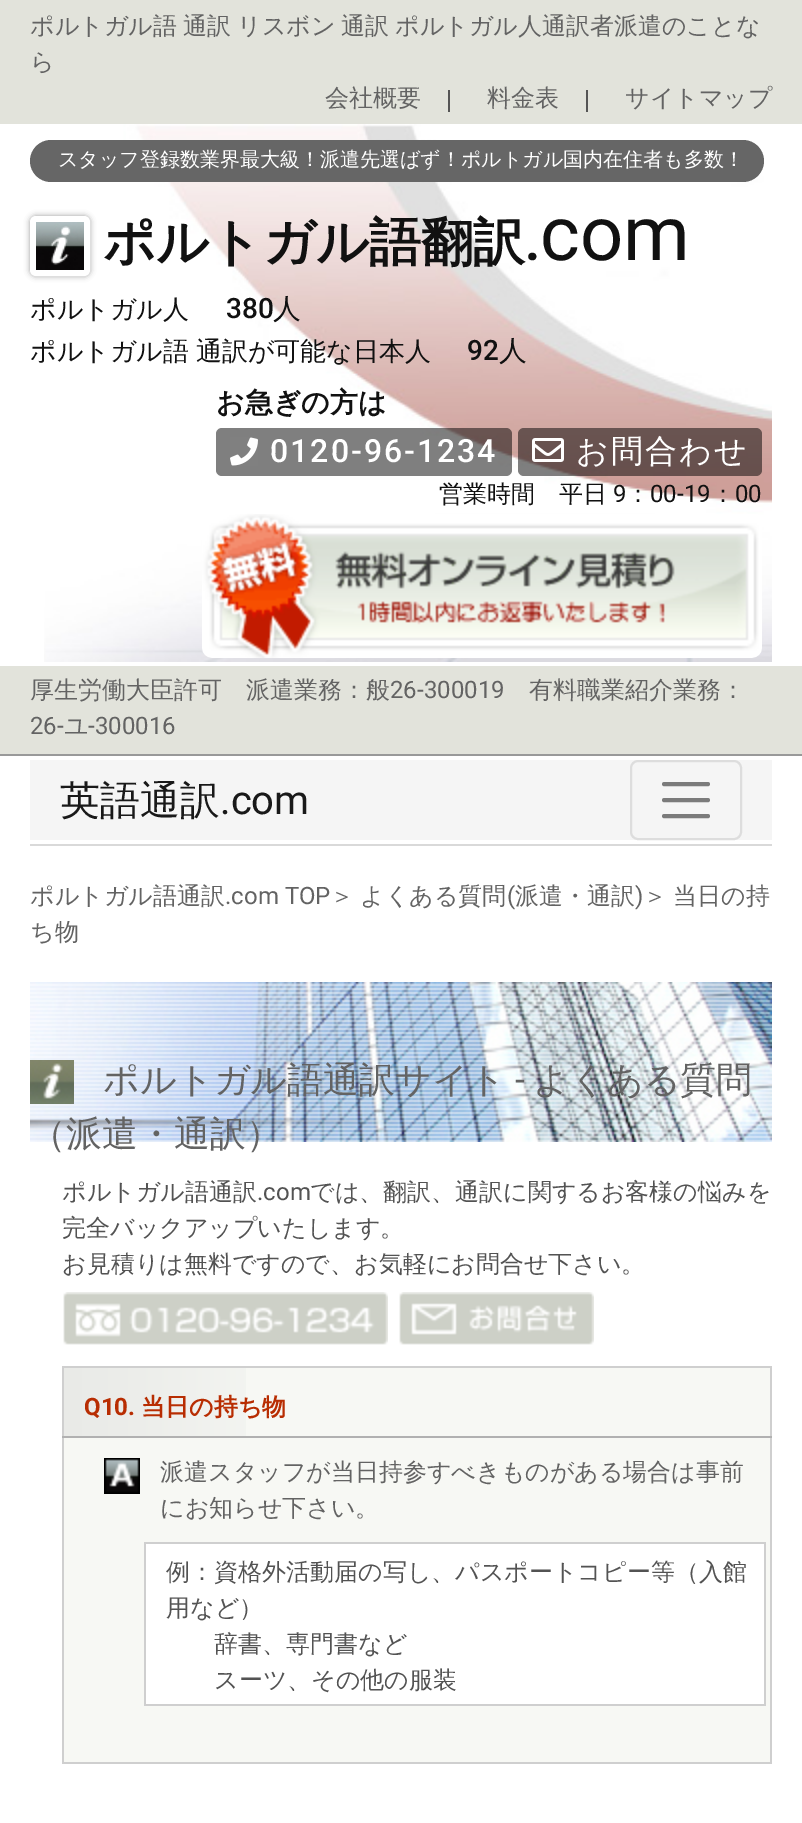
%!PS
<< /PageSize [802 1823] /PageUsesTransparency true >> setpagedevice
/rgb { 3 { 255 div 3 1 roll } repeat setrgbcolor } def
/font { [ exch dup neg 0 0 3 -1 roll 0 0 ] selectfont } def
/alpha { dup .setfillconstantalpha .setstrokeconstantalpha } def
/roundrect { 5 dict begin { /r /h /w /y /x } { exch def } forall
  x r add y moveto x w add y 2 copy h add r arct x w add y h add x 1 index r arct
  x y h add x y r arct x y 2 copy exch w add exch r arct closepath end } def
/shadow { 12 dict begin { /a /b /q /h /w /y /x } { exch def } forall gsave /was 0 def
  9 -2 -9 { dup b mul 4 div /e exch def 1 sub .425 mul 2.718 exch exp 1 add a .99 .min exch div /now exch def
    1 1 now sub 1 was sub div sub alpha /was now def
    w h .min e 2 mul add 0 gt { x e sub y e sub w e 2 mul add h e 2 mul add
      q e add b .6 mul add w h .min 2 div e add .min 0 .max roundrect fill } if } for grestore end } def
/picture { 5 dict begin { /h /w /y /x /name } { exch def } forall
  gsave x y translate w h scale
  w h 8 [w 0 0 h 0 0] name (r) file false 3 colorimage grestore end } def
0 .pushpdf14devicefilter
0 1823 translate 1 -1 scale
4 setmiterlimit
255 255 255 rgb
0 0 802 1823 rectfill
[
  [0 0 802 124 226 227 219]
  [448 90 2 22 85 85 85]
  [586 90 2 22 85 85 85]
] { aload pop rgb rectfill } forall
(img/1.rgb) 44 124 728 538 picture
102 102 102 rgb
30 140 734 42 21 roundrect fill
153 153 153 rgb
30 216 60 60 6 3 1 shadow
255 255 255 rgb
6 setlinewidth
33 219 54 54 3 roundrect stroke
(img/2.rgb) 36 222 48 48 picture
0.5 alpha
0 0 0 rgb
216 428 296 48 6 roundrect fill
1 alpha
(img/3.rgb) 230 437 28 29 picture
0.5 alpha
518 428 244 48 6 roundrect fill
1 alpha
(img/4.rgb) 532 438 32 24 picture
(img/5.rgb) 202 514 560 144 picture
[
  [0 666 802 88 226 227 219]
  [0 754 802 2 153 153 153]
  [30 844 742 2 217 217 217]
  [30 760 742 80 245 245 245]
] { aload pop rgb rectfill } forall
221 221 221 rgb
2 setlinewidth
631 761 110 78 7 roundrect stroke
123 123 123 rgb
4 setlinewidth
1 setlinecap
664 784 moveto 708 784 lineto 664 800 moveto 708 800 lineto 664 816 moveto 708 816 lineto stroke
(img/6.rgb) 30 982 742 160 picture
(img/7.rgb) 30 1060 44 44 picture
(img/8.rgb) 63 1292 325 53 picture
(img/9.rgb) 399 1292 195 53 picture
[
  [64 1368 706 394 247 248 244]
  [62 1366 710 2 207 207 207]
  [770 1366 2 398 207 207 207]
  [62 1762 710 2 207 207 207]
  [62 1366 2 398 207 207 207]
] { aload pop rgb rectfill } forall
(img/10.rgb) 64 1368 182 68 picture
177 177 177 rgb
62 1436 710 2 rectfill
(img/11.rgb) 104 1458 36 36 picture
[
  [144 1542 622 2 207 207 207]
  [764 1542 2 164 207 207 207]
  [144 1704 622 2 207 207 207]
  [144 1542 2 164 207 207 207]
  [146 1544 618 160 255 255 255]
] { aload pop rgb rectfill } forall
/WenQuanYiZenHei-Medium 24 font
99 99 99 rgb
30 34 moveto -1 0 32 (ポルトガル語 通訳) widthshow
237 34 moveto -1 0 32 (リスボン 通訳) widthshow
[
  [(ポルトガル人通訳者派遣のことな) 395 34]
  [(ら) 30 70]
  [(会社概要) 325 106]
  [(料金表) 487 106]
  [(サイトマップ) 625 106]
] { aload pop moveto show } forall
/WenQuanYiZenHei-Medium 20 font
255 255 255 rgb
58 166 moveto (スタッフ登録数業界最大級！派遣先選ばず！ポルトガル国内在住者も多数！) show
/WenQuanYiZenHei-Bold 52 font
17 17 17 rgb
103 260 moveto (ポルトガル語翻訳) show
/Roboto-Regular 76 font
540 260 moveto (com) show
/Roboto-Bold 52 font
525 260 moveto (.) show
/WenQuanYiZenHei-Medium 26 font
30 318 moveto (ポルトガル人) show
/Roboto-Medium 28 font
226 318 moveto (380) show
/WenQuanYiZenHei-Medium 28 font
273 318 moveto (人) show
/WenQuanYiZenHei-Medium 26 font
30 360 moveto -1 0 32 (ポルトガル語 通訳が可能な日本人) widthshow
/Roboto-Medium 28 font
467 360 moveto (92) show
/WenQuanYiZenHei-Medium 28 font
499 360 moveto (人) show
/WenQuanYiZenHei-Bold 28 font
216 412 moveto (お急ぎの方は) show
/Roboto-Medium 32 font
255 255 255 rgb
270 462 moveto 2 0 (0120-96-1234) ashow
/WenQuanYiZenHei-Medium 32 font
576 462 moveto 2 0 (お問合わせ) ashow
/WenQuanYiZenHei-Medium 24 font
17 17 17 rgb
439 502 moveto (営業時間　平日) show
/Roboto-Regular 24 font
613 502 moveto (9) show
/WenQuanYiZenHei-Medium 24 font
626 502 moveto (：) show
/Roboto-Regular 24 font
650 502 moveto (00-19) show
/WenQuanYiZenHei-Medium 24 font
711 502 moveto (：) show
/Roboto-Regular 24 font
735 502 moveto (00) show
/WenQuanYiZenHei-Medium 24 font
99 99 99 rgb
30 698 moveto (厚生労働大臣許可　派遣業務：般) show
/Roboto-Regular 24 font
390 698 moveto (26-300019) show
/WenQuanYiZenHei-Medium 24 font
529 698 moveto (有料職業紹介業務：) show
/Roboto-Regular 24 font
30 734 moveto (26-) show
/WenQuanYiZenHei-Medium 24 font
64 734 moveto (ユ) show
/Roboto-Regular 24 font
88 734 moveto (-300016) show
/WenQuanYiZenHei-Medium 40 font
25 25 25 rgb
60 814 moveto (英語通訳) show
/Roboto-Regular 40 font
220 814 moveto (.com) show
/WenQuanYiZenHei-Medium 24 font
99 99 99 rgb
30 904 moveto (ポルトガル語通訳) show
/Roboto-Regular 24 font
225 904 moveto (.com TOP) show
/WenQuanYiZenHei-Medium 24 font
330 904 moveto (＞) show
360 904 moveto (よくある質問) show
/Roboto-Regular 24 font
507 904 moveto (\() show
/WenQuanYiZenHei-Medium 24 font
515 904 moveto (派遣・通訳) show
/Roboto-Regular 24 font
635 904 moveto (\)) show
/WenQuanYiZenHei-Medium 24 font
[
  [(＞) 643 904]
  [(当日の持) 673 904]
  [(ち物) 30 940]
] { aload pop moveto show } forall
/WenQuanYiZenHei-Medium 36 font
103 1092 moveto (ポルトガル語通訳サイト) show
/Roboto-Regular 36 font
515 1092 moveto (-) show
/WenQuanYiZenHei-Medium 36 font
533 1092 moveto (よくある質問) show
30 1146 moveto (（派遣・通訳）) show
/WenQuanYiZenHei-Medium 24 font
83 83 83 rgb
62 1200 moveto (ポルトガル語通訳) show
/Roboto-Regular 24 font
257 1200 moveto (.com) show
/WenQuanYiZenHei-Medium 24 font
[
  [(では、翻訳、通訳に関するお客様の悩みを) 310 1200]
  [(完全バックアップいたします。) 62 1236]
  [(お見積りは無料ですので、お気軽にお問合せ下さい。) 62 1272]
] { aload pop moveto show } forall
/Roboto-Bold 24 font
184 45 2 rgb
84 1415 moveto (Q10.) show
/WenQuanYiZenHei-Bold 24 font
141 1415 moveto (当日の持ち物) show
/WenQuanYiZenHei-Medium 24 font
99 99 99 rgb
160 1480 moveto (派遣スタッフが当日持参すべきものがある場合は事前) show
160 1516 moveto (にお知らせ下さい。) show
83 83 83 rgb
[
  [(例：資格外活動届の写し、パスポートコピー等（入館) 166 1580]
  [(用など）) 166 1616]
  [(辞書、専門書など) 214 1652]
  [(スーツ、その他の服装) 214 1688]
] { aload pop moveto show } forall
.poppdf14devicefilter showpage
